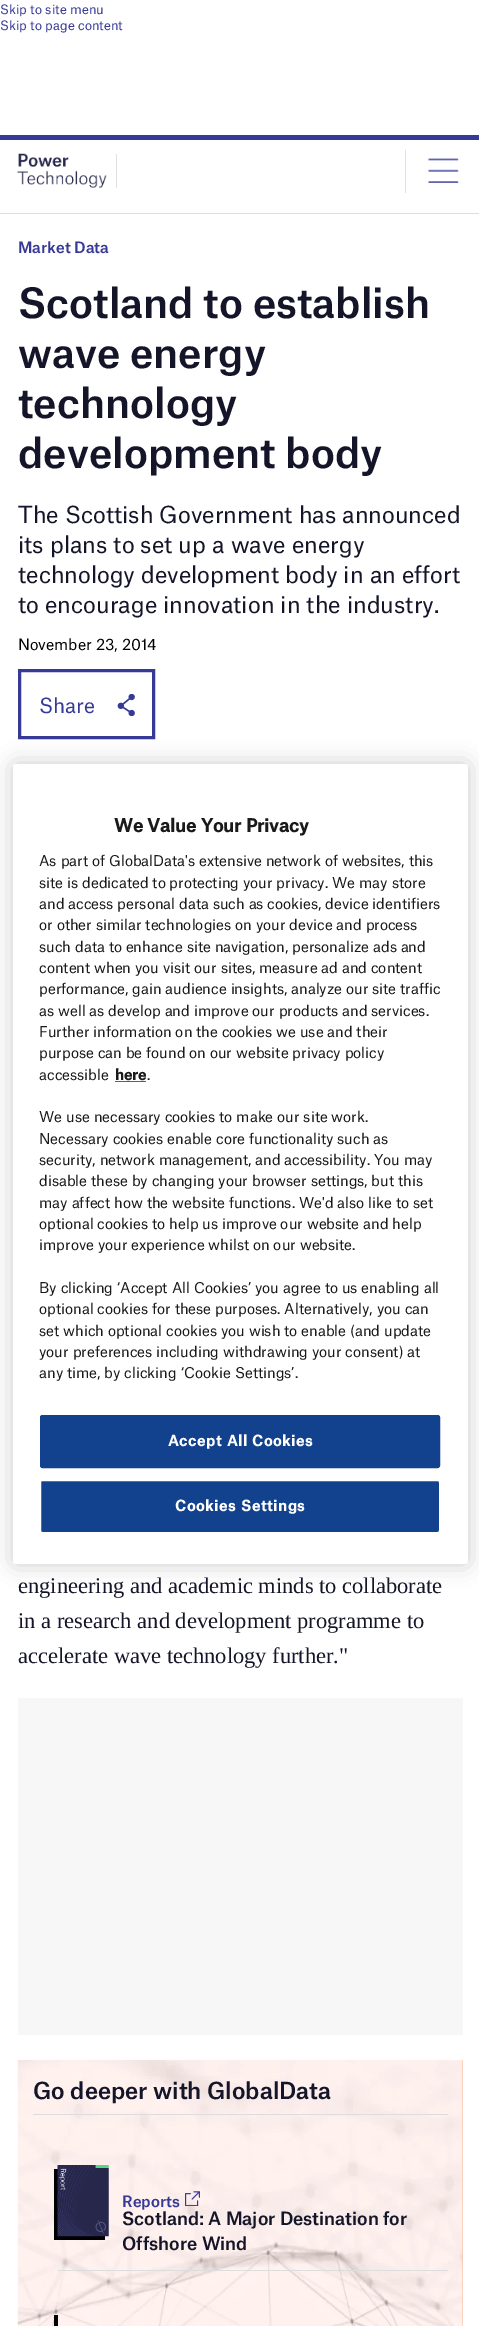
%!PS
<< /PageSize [479 2326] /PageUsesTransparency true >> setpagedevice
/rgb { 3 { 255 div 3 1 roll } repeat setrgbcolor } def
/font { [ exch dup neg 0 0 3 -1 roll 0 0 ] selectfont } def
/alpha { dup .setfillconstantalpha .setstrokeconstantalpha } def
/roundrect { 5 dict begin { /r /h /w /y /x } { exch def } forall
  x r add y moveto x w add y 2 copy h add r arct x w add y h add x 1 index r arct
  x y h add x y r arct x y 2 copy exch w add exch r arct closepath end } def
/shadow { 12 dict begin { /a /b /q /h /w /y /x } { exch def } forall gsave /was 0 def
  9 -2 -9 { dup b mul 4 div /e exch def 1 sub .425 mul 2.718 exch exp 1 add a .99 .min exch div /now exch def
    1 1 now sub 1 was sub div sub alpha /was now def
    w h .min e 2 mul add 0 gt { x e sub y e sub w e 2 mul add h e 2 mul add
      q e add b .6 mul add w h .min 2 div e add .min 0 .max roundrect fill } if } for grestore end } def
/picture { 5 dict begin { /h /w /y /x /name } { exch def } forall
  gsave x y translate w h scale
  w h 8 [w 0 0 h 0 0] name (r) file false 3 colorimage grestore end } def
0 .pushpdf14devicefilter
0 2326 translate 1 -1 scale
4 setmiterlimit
255 255 255 rgb
0 0 479 2326 rectfill
[
  [0 135 479 5 55 57 151]
  [0 213 479 1 221 221 221]
  [116 154 1 34 225 225 225]
] { aload pop rgb rectfill } forall
(img/1.rgb) 17 153 90 35 picture
(img/2.rgb) 427 158 32 25 picture
405 150 1 43 rectfill
55 57 151 rgb
3 setlinewidth
19.5 670.5 134 67 rectstroke
(img/3.rgb) 117 694 18 22 picture
247 247 247 rgb
18 1698 445 337 rectfill
254 202 173 rgb
462 2060 1 266 rectfill
(img/4.rgb) 17 2060 446 266 picture
221 221 221 rgb
33 2114 415 1 rectfill
58 2270 390 1 rectfill
0 0 0 rgb
54 2169 moveto 54 2240 lineto 105 2240 lineto 105 2236 lineto 58 2236 lineto 58 2169 lineto closepath fill
(img/5.rgb) 57 2165 52 72 picture
(img/6.rgb) 185 2191 15 15 picture
54 2315 moveto 54 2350 lineto 105 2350 lineto 105 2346 lineto 58 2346 lineto 58 2315 lineto closepath fill
13 764 455 800 3 11 0.2 shadow
255 255 255 rgb
13 764 455 800 3 roundrect fill
56 96 190 rgb
115 1081 31 1 rectfill
18 65 141 rgb
40.5 1415.5 399 52 2 roundrect gsave fill grestore
1 setlinewidth
stroke
40.5 1480.5 399 52 2 roundrect gsave fill grestore
255 255 255 rgb
stroke
/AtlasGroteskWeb-Regular 12.5 font
55 57 151 rgb
0 14 moveto (Skip to site menu) show
0 30 moveto (Skip to page content) show
/AtlasGroteskWeb-Medium 15 font
18 253 moveto (Market Data) show
/AtlasGroteskWeb-Medium 40 font
21 21 41 rgb
[
  [(Scotland to establish) 18 318]
  [(wave energy) 18 368]
  [(technology) 18 418]
  [(development body) 18 468]
] { aload pop moveto show } forall
/AtlasGroteskWeb-Regular 22.5 font
[
  [(The Scottish Government has announced) 18 523]
  [(its plans to set up a wave energy) 18 553]
  [(technology development body in an effort) 18 583]
  [(to encourage innovation in the industry.) 18 613]
] { aload pop moveto show } forall
/AtlasGroteskWeb-Regular 15 font
0 0 0 rgb
18 650 moveto (November 23, 2014) show
/AtlasGroteskWeb-Regular 20 font
55 57 151 rgb
39 713 moveto (Share) show
/LiberationSerif-Regular 22.5 font
21 21 41 rgb
[
  [(engineering and academic minds to collaborate) 18 1593]
  [(in a research and development programme to) 18 1628]
  [(accelerate wave technology further.") 18 1663]
] { aload pop moveto show } forall
/AtlasGroteskWeb-Medium 22.5 font
33 2099 moveto (Go deeper with GlobalData) show
/AtlasGroteskWeb-Medium 15 font
55 57 151 rgb
122 2207 moveto (Reports) show
/AtlasGroteskWeb-Medium 17.5 font
21 21 41 rgb
122 2225 moveto (Scotland: A Major Destination for) show
122 2250 moveto (Offshore Wind) show
/AtlasGroteskWeb-Bold 17.5 font
26 26 26 rgb
114 832 moveto (We Value Your Privacy) show
/AtlasGroteskWeb-Regular 14.25 font
[
  [(As part of GlobalData's extensive network of websites, this) 39 866]
  [(site is dedicated to protecting your privacy. We may store) 39 888]
  [(and access personal data such as cookies, device identifiers) 39 909]
  [(or other similar technologies on your device and process) 39 930]
  [(such data to enhance site navigation, personalize ads and) 39 952]
  [(content when you visit our sites, measure ad and content) 39 973]
  [(performance, gain audience insights, analyze our site traffic) 39 994]
  [(as well as develop and improve our products and services.) 39 1016]
  [(Further information on the cookies we use and their) 39 1037]
  [(purpose can be found on our website privacy policy) 39 1058]
  [(accessible) 39 1080]
] { aload pop moveto show } forall
/AtlasGroteskWeb-Bold 14.25 font
115 1080 moveto (here) show
/AtlasGroteskWeb-Regular 14.25 font
[
  [(.) 147 1080]
  [(We use necessary cookies to make our site work.) 39 1122]
  [(Necessary cookies enable core functionality such as) 39 1144]
  [(security, network management, and accessibility. You may) 39 1165]
  [(disable these by changing your browser settings, but this) 39 1186]
  [(may affect how the website functions. We'd also like to set) 39 1208]
  [(optional cookies to help us improve our website and help) 39 1229]
  [(improve your experience whilst on our website.) 39 1250]
  [(By clicking ‘Accept All Cookies’ you agree to us enabling all) 39 1293]
  [(optional cookies for these purposes. Alternatively, you can) 39 1314]
  [(set which optional cookies you wish to enable \(and update) 39 1336]
  [(your preferences including withdrawing your consent\) at) 39 1357]
  [(any time, by clicking ‘Cookie Settings’.) 39 1378]
] { aload pop moveto show } forall
/AtlasGroteskWeb-Bold 14.25 font
255 255 255 rgb
168 1446 moveto 0.75 0 (Accept All Cookies) ashow
175 1511 moveto 0.75 0 (Cookies Settings) ashow
.poppdf14devicefilter showpage
